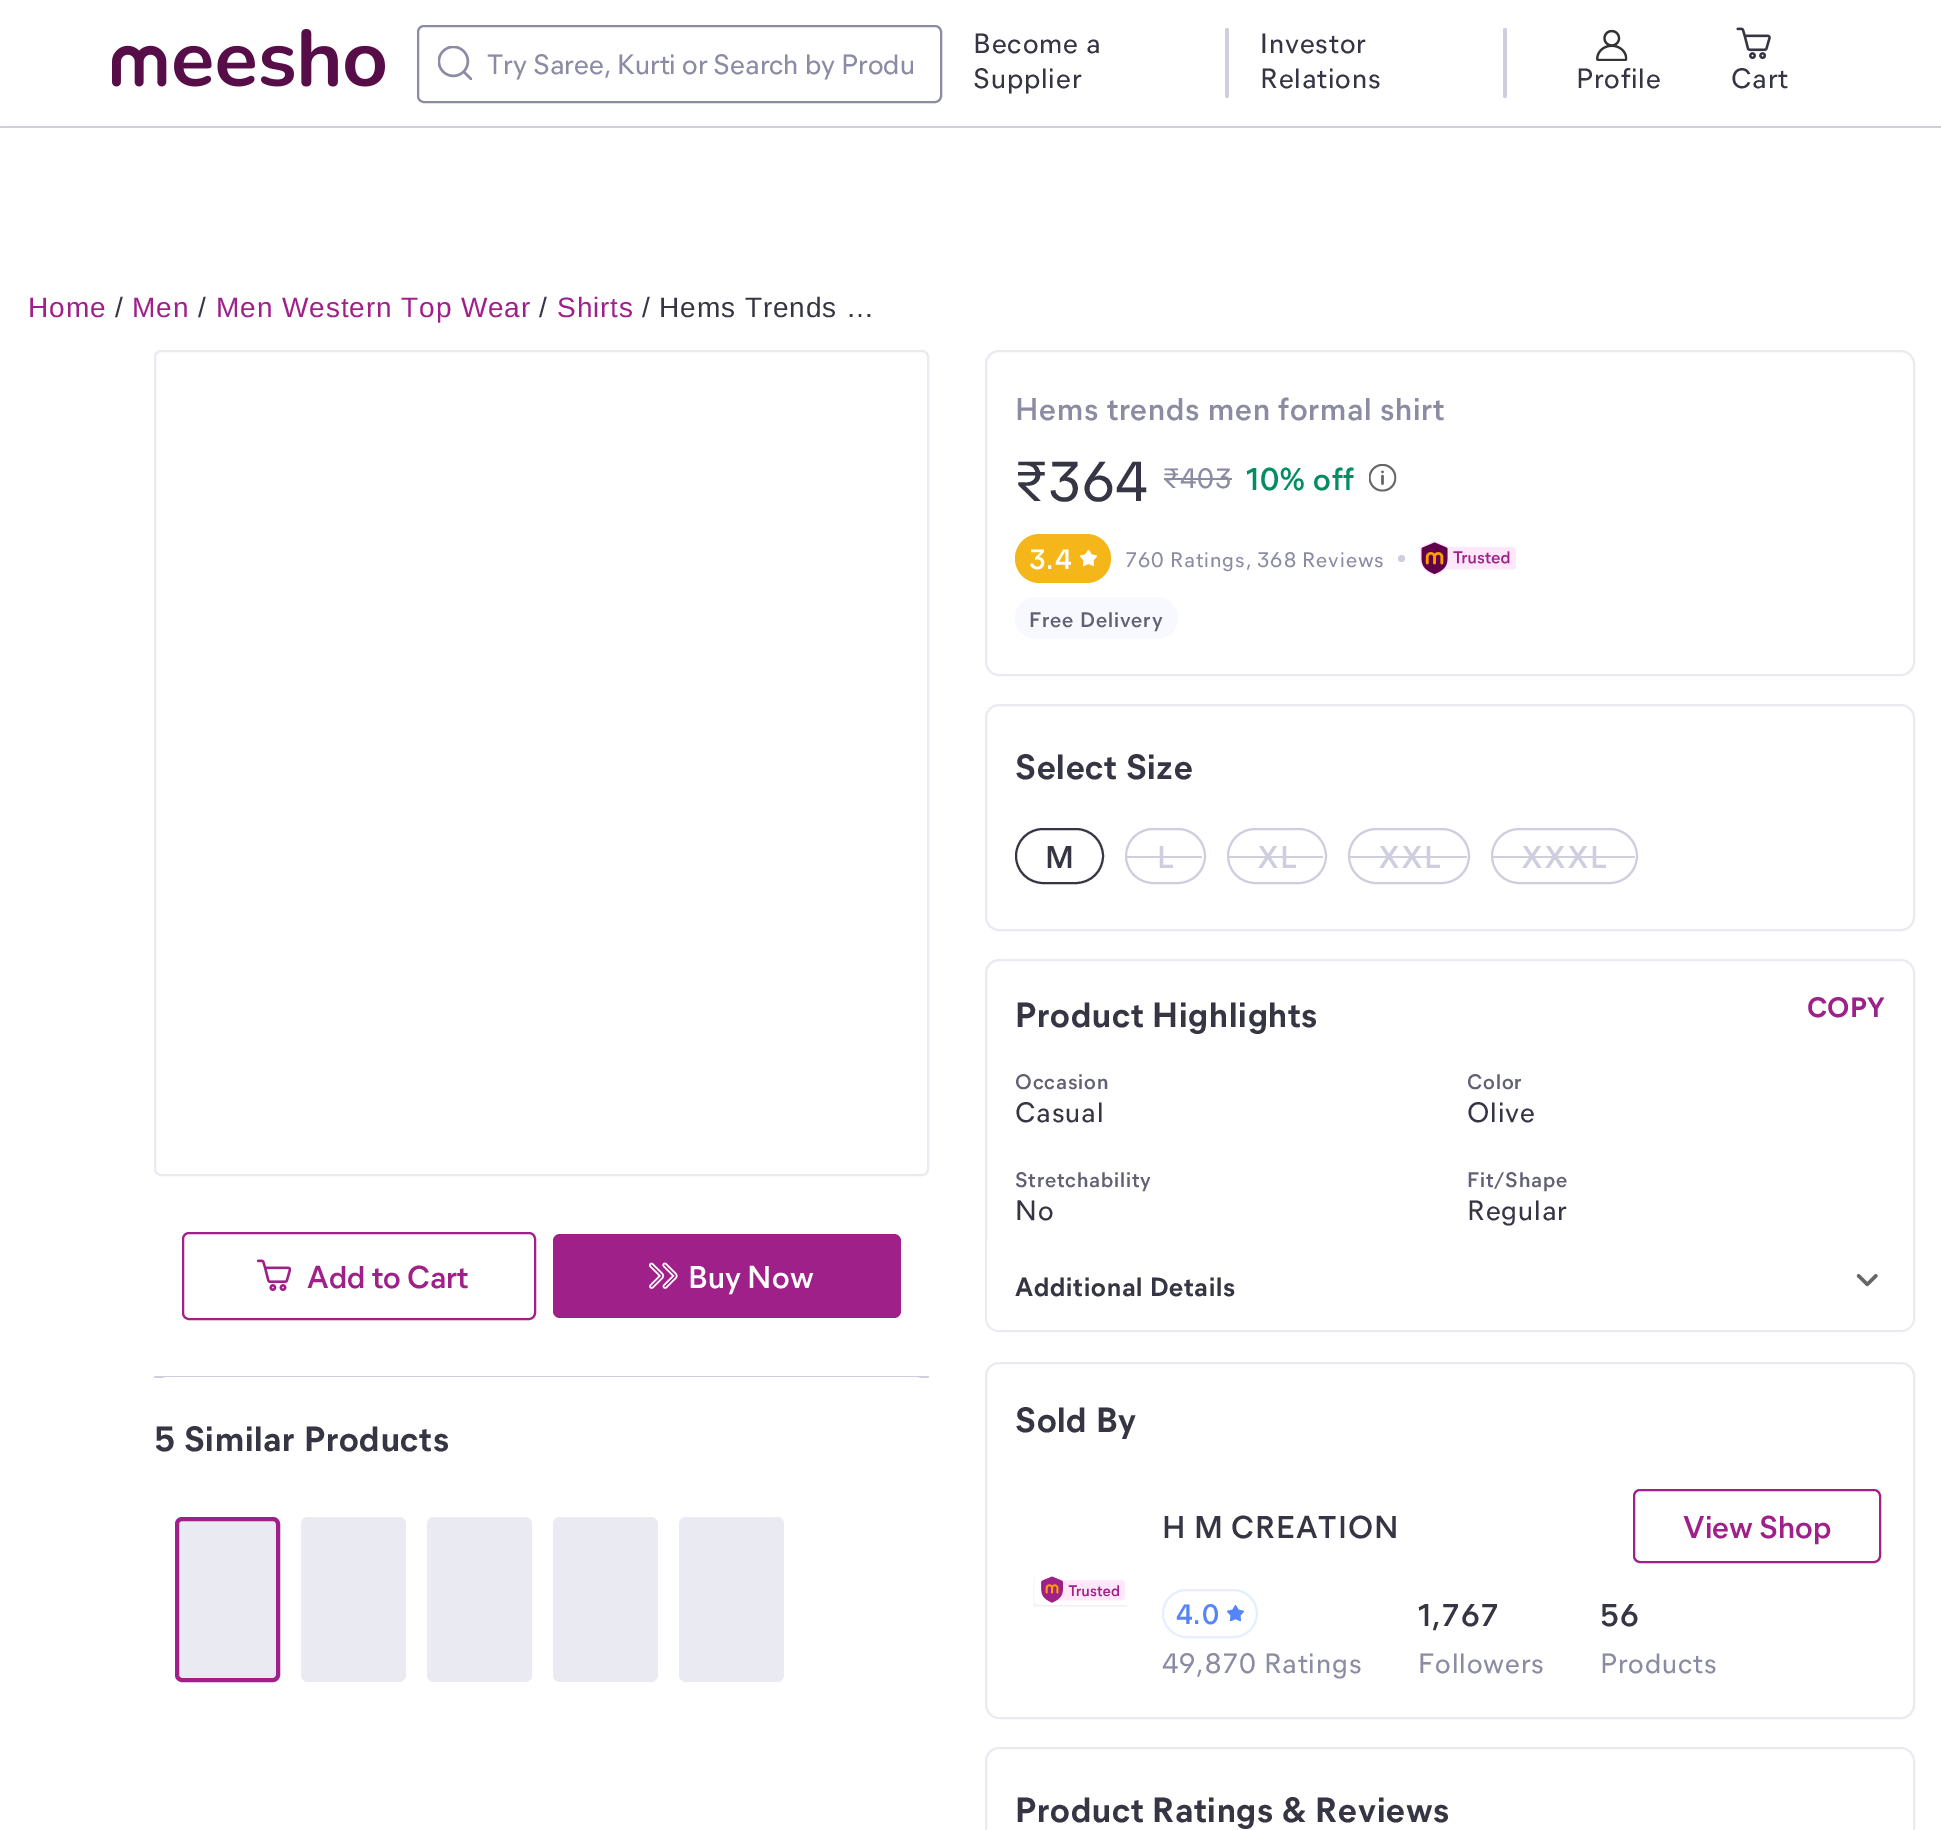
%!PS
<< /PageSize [1941 1830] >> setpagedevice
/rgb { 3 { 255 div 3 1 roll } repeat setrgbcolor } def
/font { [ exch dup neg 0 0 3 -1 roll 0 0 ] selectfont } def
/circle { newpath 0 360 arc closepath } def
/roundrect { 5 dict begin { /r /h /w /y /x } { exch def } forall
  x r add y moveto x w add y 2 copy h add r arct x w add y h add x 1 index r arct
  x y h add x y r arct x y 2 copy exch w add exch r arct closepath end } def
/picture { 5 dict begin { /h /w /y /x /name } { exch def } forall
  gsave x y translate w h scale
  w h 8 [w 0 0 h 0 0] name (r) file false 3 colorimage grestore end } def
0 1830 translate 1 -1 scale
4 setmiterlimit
255 255 255 rgb
0 0 1941 1830 rectfill
(img/1.rgb) 112 29 273 58 picture
139 139 163 rgb
2 setlinewidth
418 26 523 76 6 roundrect stroke
(img/2.rgb) 438 46 34 34 picture
206 206 222 rgb
1225 28 4 70 2 roundrect fill
1503 28 4 70 2 roundrect fill
(img/3.rgb) 1596 29 32 32 picture
(img/4.rgb) 1736 27 35 33 picture
0 126 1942 2 1 roundrect fill
234 234 242 rgb
155 351 773 824 6 roundrect stroke
159 32 137 rgb
183 1233 352 86 6 roundrect stroke
(img/5.rgb) 256 1259 35 32 picture
553 1234 348 84 7 roundrect fill
(img/6.rgb) 648 1262 30 27 picture
206 206 222 rgb
154 1376 775 2 1 roundrect fill
255 255 255 rgb
154 1377 775 333 14 roundrect fill
234 234 242 rgb
177 1519 101 161 5 roundrect gsave fill grestore
159 32 137 rgb
4 setlinewidth
stroke
234 234 242 rgb
301 1517 105 165 7 roundrect fill
427 1517 105 165 7 roundrect fill
553 1517 105 165 7 roundrect fill
679 1517 105 165 7 roundrect fill
2 setlinewidth
986 351 928 324 13 roundrect stroke
139 139 163 rgb
1164 478 68 2 rectfill
(img/7.rgb) 1369 464 28 28 picture
244 182 25 rgb
1015 534 96 49 24.5 roundrect fill
(img/8.rgb) 1080 550 17 16 picture
206 206 222 rgb
1401.5 558.5 3.5 circle fill
(img/9.rgb) 1420 541 96 35 picture
248 248 255 rgb
1015 597 163 42 21 roundrect fill
234 234 242 rgb
986 705 928 225 13 roundrect stroke
53 53 67 rgb
1016 829 87 54 27 roundrect stroke
206 206 222 rgb
1126 829 79 54 27 roundrect stroke
1125 856 77 2 1 roundrect fill
1228 829 98 54 27 roundrect stroke
1227 856 96 2 1 roundrect fill
1349 829 120 54 27 roundrect stroke
1348 856 119 2 1 roundrect fill
1492 829 145 54 27 roundrect stroke
1491 856 144 2 1 roundrect fill
234 234 242 rgb
986 960 928 371 13 roundrect stroke
255 255 255 rgb
987 1241 moveto 1913 1241 lineto 1913 1318 lineto 1913 1324.5 1907.5 1330 1901 1330 curveto 999 1330 lineto 992.5 1330 987 1324.5 987 1318 curveto closepath fill
(img/10.rgb) 1856 1274 22 13 picture
234 234 242 rgb
986 1363 928 355 13 roundrect stroke
159 32 137 rgb
1634 1490 246 72 6 roundrect stroke
(img/11.rgb) 1033 1576 94 31 picture
231 238 255 rgb
1163 1590 94 47 23.5 roundrect stroke
(img/12.rgb) 1227 1605 17 16 picture
234 234 242 rgb
986 1748 928 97 13 roundrect stroke
/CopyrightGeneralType-Medium 28 font
139 139 163 rgb
487 74 moveto 0.05 0 (Try Saree, Kurti or Search by Produ) ashow
53 53 67 rgb
973 53 moveto 0.9 0 (Become a) ashow
973 88 moveto 0.9 0 (Supplier) ashow
1260 53 moveto 0.9 0 (Investor) ashow
1260 88 moveto 0.9 0 (Relations) ashow
1576 88 moveto 0.9 0 (Profile) ashow
1731 88 moveto 0.9 0 (Cart) ashow
/LiberationSans-Regular 28 font
159 32 137 rgb
28 317 moveto 0.9 0 (Home) ashow
53 53 67 rgb
115 317 moveto 0.9 0 (/) ashow
159 32 137 rgb
132 317 moveto 0.9 0 (Men) ashow
53 53 67 rgb
198 317 moveto 0.9 0 (/) ashow
159 32 137 rgb
216 317 moveto 0.9 0 (Men Western Top Wear) ashow
53 53 67 rgb
539 317 moveto 0.9 0 (/) ashow
159 32 137 rgb
557 317 moveto 0.9 0 (Shirts) ashow
53 53 67 rgb
642 317 moveto 0.9 0 (/ Hems Trends …) ashow
/CopyrightGeneralType-SemiBold 31.5 font
159 32 137 rgb
307 1288 moveto (Add to Cart) show
255 255 255 rgb
688 1288 moveto (Buy Now) show
/CopyrightGeneralType-Bold 35 font
53 53 67 rgb
154 1451 moveto 0.9 0 (5 Similar Products) ashow
/CopyrightGeneralType-SemiBold 31.5 font
139 139 163 rgb
1015 420 moveto 0.9 0 (Hems trends men formal shirt) ashow
/CopyrightGeneralType-Medium 56 font
53 53 67 rgb
1015 501 moveto 0.9 0 (₹364) ashow
/CopyrightGeneralType-Medium 28 font
139 139 163 rgb
1163 488 moveto 0.9 0 (₹403) ashow
/CopyrightGeneralType-SemiBold 31.5 font
3 141 99 rgb
1246 490 moveto 0.9 0 (10% off) ashow
/CopyrightGeneralType-SemiBold 28 font
255 255 255 rgb
1029 569 moveto 0.9 0 (3.4) ashow
/CopyrightGeneralType-Medium 21 font
139 139 163 rgb
1125 567 moveto 0.9 0 (760 Ratings, 368 Reviews) ashow
/CopyrightGeneralType-SemiBold 21 font
97 97 115 rgb
1029 627 moveto 0.9 0 (Free Delivery) ashow
/CopyrightGeneralType-Bold 35 font
53 53 67 rgb
1015 779 moveto 0.9 0 (Select Size) ashow
/CopyrightGeneralType-SemiBold 31.5 font
1045 868 moveto 0.9 0 (M) ashow
206 206 222 rgb
1157 868 moveto 0.9 0 (L) ashow
1257 868 moveto 0.9 0 (XL) ashow
1378 868 moveto 0.9 0 (XXL) ashow
1521 868 moveto 0.9 0 (XXXL) ashow
/CopyrightGeneralType-Bold 35 font
53 53 67 rgb
1015 1027 moveto 0.9 0 (Product Highlights) ashow
/CopyrightGeneralType-Bold 28 font
159 32 137 rgb
1807 1017 moveto (COPY) show
/CopyrightGeneralType-SemiBold 21 font
97 97 115 rgb
1015 1089 moveto 0.9 0 (Occasion) ashow
/CopyrightGeneralType-Medium 28 font
53 53 67 rgb
1015 1122 moveto 0.9 0 (Casual) ashow
/CopyrightGeneralType-SemiBold 21 font
97 97 115 rgb
1467 1089 moveto 0.9 0 (Color) ashow
/CopyrightGeneralType-Medium 28 font
53 53 67 rgb
1467 1122 moveto 0.9 0 (Olive) ashow
/CopyrightGeneralType-SemiBold 21 font
97 97 115 rgb
1015 1187 moveto 0.9 0 (Stretchability) ashow
/CopyrightGeneralType-Medium 28 font
53 53 67 rgb
1015 1220 moveto 0.9 0 (No) ashow
/CopyrightGeneralType-SemiBold 21 font
97 97 115 rgb
1467 1187 moveto 0.9 0 (Fit/Shape) ashow
/CopyrightGeneralType-Medium 28 font
53 53 67 rgb
1467 1220 moveto 0.9 0 (Regular) ashow
/CopyrightGeneralType-Bold 26.25 font
1015 1296 moveto 0.9 0 (Additional Details) ashow
/CopyrightGeneralType-Bold 35 font
1015 1432 moveto 0.9 0 (Sold By) ashow
/CopyrightGeneralType-SemiBold 31.5 font
1162 1538 moveto 0.9 0 (H M CREATION) ashow
159 32 137 rgb
1683 1538 moveto (View Shop) show
/CopyrightGeneralType-SemiBold 28 font
85 133 248 rgb
1176 1624 moveto 0.9 0 (4.0) ashow
/CopyrightGeneralType-Medium 28 font
139 139 163 rgb
1162 1673 moveto 0.9 0 (49,870 Ratings) ashow
/CopyrightGeneralType-SemiBold 31.5 font
53 53 67 rgb
1418 1626 moveto 0.9 0 (1,767) ashow
/CopyrightGeneralType-Medium 28 font
139 139 163 rgb
1418 1673 moveto 0.9 0 (Followers) ashow
/CopyrightGeneralType-SemiBold 31.5 font
53 53 67 rgb
1600 1626 moveto 0.9 0 (56) ashow
/CopyrightGeneralType-Medium 28 font
139 139 163 rgb
1600 1673 moveto 0.9 0 (Products) ashow
/CopyrightGeneralType-Bold 35 font
53 53 67 rgb
1015 1822 moveto 0.9 0 (Product Ratings & Reviews) ashow
showpage
